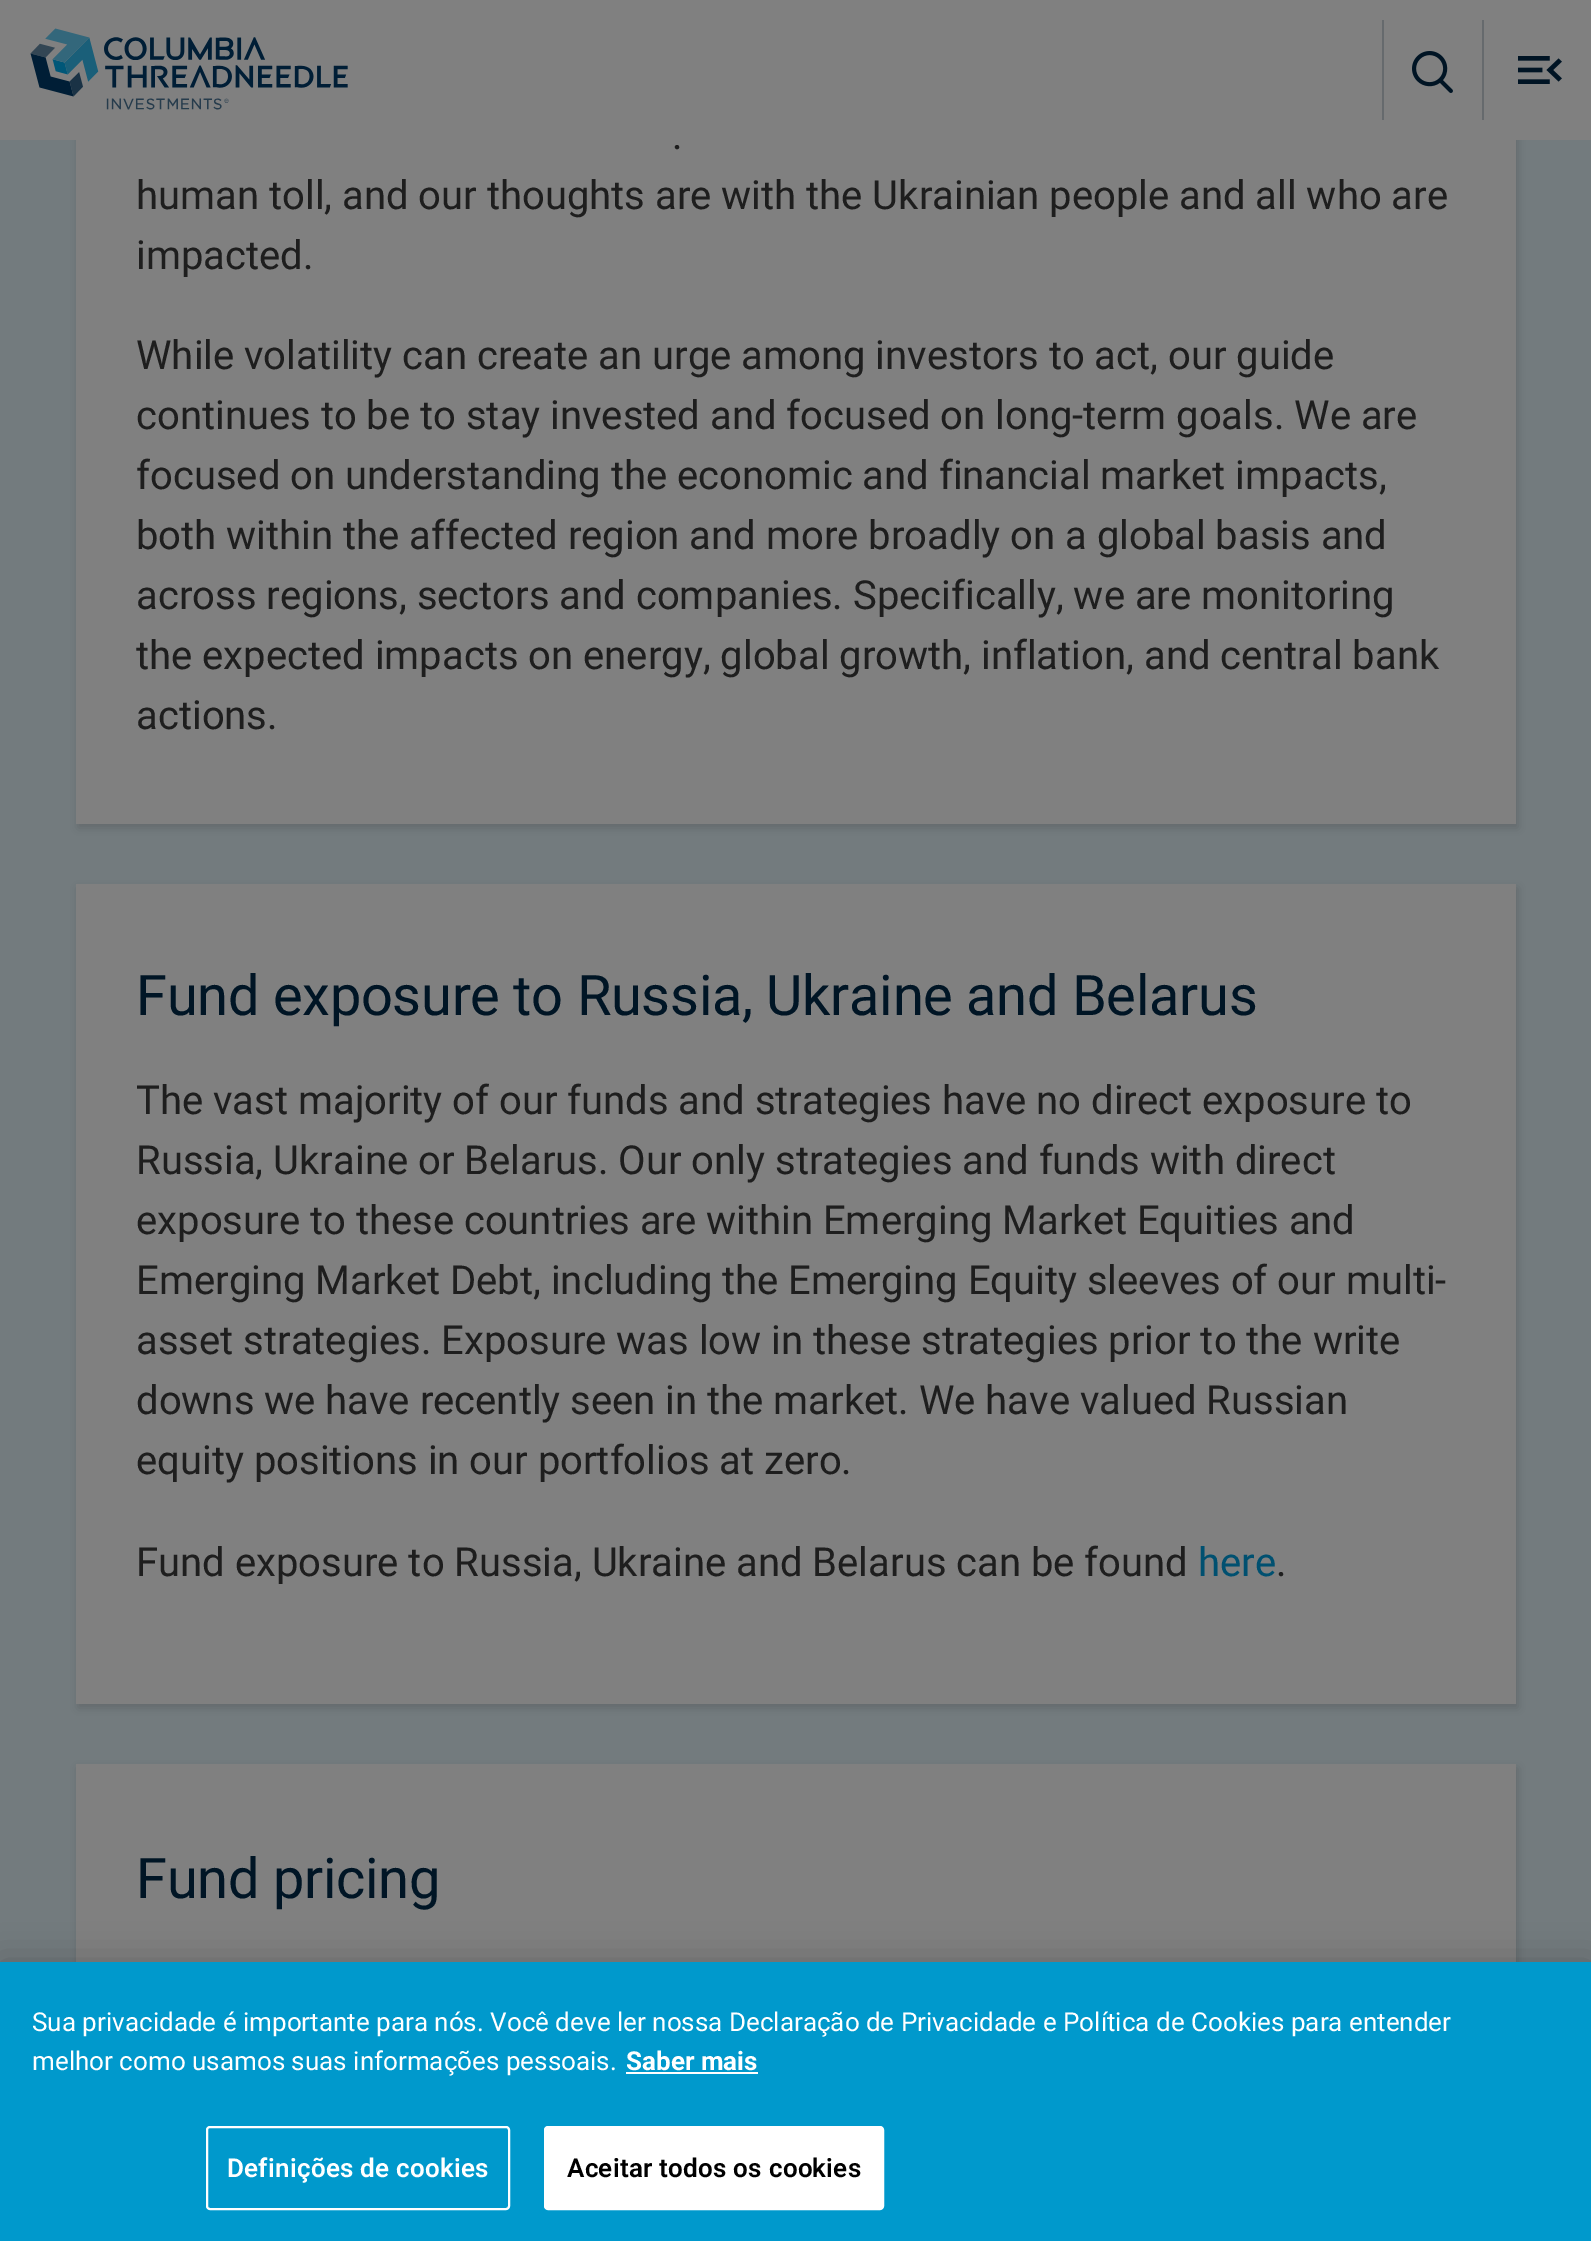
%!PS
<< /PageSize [1591 2241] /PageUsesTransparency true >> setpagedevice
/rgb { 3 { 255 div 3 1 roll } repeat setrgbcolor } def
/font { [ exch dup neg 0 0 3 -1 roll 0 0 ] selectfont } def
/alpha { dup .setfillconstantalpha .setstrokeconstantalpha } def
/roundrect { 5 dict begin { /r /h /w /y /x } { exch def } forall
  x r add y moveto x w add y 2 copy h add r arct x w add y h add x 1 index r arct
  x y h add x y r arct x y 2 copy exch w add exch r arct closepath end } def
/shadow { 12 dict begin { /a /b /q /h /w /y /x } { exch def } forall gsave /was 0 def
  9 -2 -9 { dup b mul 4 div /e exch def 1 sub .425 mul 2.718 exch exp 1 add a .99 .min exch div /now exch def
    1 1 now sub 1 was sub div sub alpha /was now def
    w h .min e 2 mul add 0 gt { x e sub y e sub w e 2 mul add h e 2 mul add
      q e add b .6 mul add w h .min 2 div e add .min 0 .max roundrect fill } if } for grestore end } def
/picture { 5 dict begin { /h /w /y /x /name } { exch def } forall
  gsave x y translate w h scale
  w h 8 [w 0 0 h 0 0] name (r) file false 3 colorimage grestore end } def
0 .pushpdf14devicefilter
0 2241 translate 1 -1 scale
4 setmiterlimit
115 123 126 rgb
0 0 1591 2241 rectfill
0 0 0 rgb
78 -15 1440 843 0 5 0.15 shadow
128 128 128 rgb
0 0 1591 140 rectfill
(img/1.rgb) 30 28 318 82 picture
102 106 109 rgb
1382 20 2 100 rectfill
(img/2.rgb) 1412 51 41 42 picture
1482 20 2 100 rectfill
(img/3.rgb) 1518 56 44 28 picture
128 128 128 rgb
76 140 1440 684 rectfill
0 0 0 rgb
78 888 1440 820 0 5 0.15 shadow
128 128 128 rgb
76 884 1440 820 rectfill
0 0 0 rgb
78 1768 1440 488 0 5 0.15 shadow
128 128 128 rgb
76 1764 1440 198 rectfill
0 0 0 rgb
0 1962 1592 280 0 18 0.2 shadow
0 153 204 rgb
0 1962 1591 279 rectfill
255 255 255 rgb
626 2072 132 2 rectfill
2 setlinewidth
207 2127 302 82 3 roundrect stroke
545 2127 338 82 3 roundrect gsave fill grestore
stroke
/Roboto-Regular 40 font
30 30 30 rgb
[
  [(.) 672 149]
  [(human toll, and our thoughts are with the Ukrainian people and all who are) 136 209]
  [(impacted.) 136 269]
  [(While volatility can create an urge among investors to act, our guide) 136 369]
  [(continues to be to stay invested and focused on long-term goals. We are) 136 429]
  [(focused on understanding the economic and financial market impacts,) 136 489]
  [(both within the affected region and more broadly on a global basis and) 136 549]
  [(across regions, sectors and companies. Specifically, we are monitoring) 136 609]
  [(the expected impacts on energy, global growth, inflation, and central bank) 136 669]
  [(actions.) 136 729]
] { aload pop moveto show } forall
/Roboto-Regular 56 font
0 21 37 rgb
136 1015 moveto -0.3 0 (Fund exposure to Russia, Ukraine and Belarus) ashow
/Roboto-Regular 40 font
30 30 30 rgb
[
  [(The vast majority of our funds and strategies have no direct exposure to) 136 1114]
  [(Russia, Ukraine or Belarus. Our only strategies and funds with direct) 136 1174]
  [(exposure to these countries are within Emerging Market Equities and) 136 1234]
  [(Emerging Market Debt, including the Emerging Equity sleeves of our multi-) 136 1294]
  [(asset strategies. Exposure was low in these strategies prior to the write) 136 1354]
  [(downs we have recently seen in the market. We have valued Russian) 136 1414]
  [(equity positions in our portfolios at zero.) 136 1474]
  [(Fund exposure to Russia, Ukraine and Belarus can be found) 136 1576]
] { aload pop moveto show } forall
0 80 112 rgb
1198 1576 moveto (here) show
30 30 30 rgb
1276 1576 moveto (.) show
/Roboto-Regular 56 font
0 21 37 rgb
136 1898 moveto -0.3 0 (Fund pricing) ashow
/Roboto-Regular 26.02 font
255 255 255 rgb
32 2031 moveto (Sua privacidade é importante para nós. Você deve ler nossa Declaração de Privacidade e Política de Cookies para entender) show
32 2070 moveto (melhor como usamos suas informações pessoais.) show
/Roboto-Bold 26.02 font
626 2070 moveto (Saber mais) show
/Roboto-SemiBold 26.02 font
227 2177 moveto 0.25 0 (Definições de cookies) ashow
0 0 0 rgb
567 2177 moveto 0.25 0 (Aceitar todos os cookies) ashow
.poppdf14devicefilter showpage
